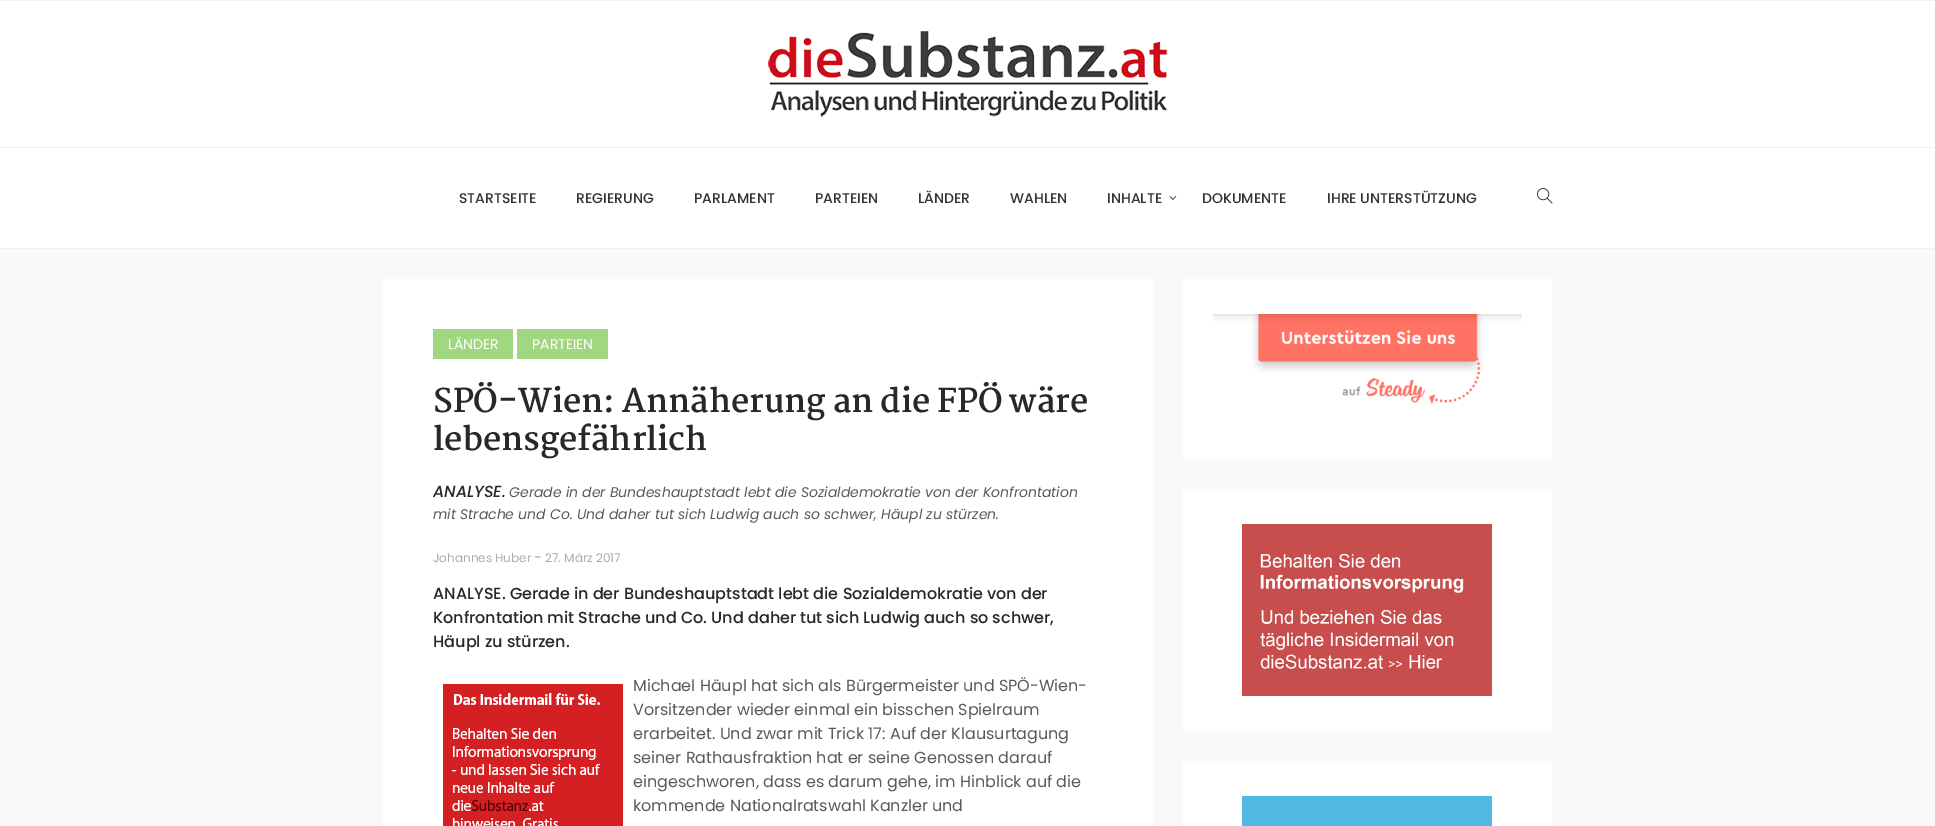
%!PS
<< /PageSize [1935 826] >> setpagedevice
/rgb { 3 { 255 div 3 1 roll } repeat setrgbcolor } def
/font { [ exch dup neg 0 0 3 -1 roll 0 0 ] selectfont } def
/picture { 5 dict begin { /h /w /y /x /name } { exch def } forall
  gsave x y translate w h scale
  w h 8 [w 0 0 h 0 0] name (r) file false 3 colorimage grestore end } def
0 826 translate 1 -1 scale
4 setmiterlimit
249 249 249 rgb
0 0 1935 826 rectfill
[
  [0 1 1935 247 255 255 255]
  [0 0 1935 1 241 242 235]
  [0 248 1935 1 241 242 235]
  [0 147 1935 1 241 242 236]
] { aload pop rgb rectfill } forall
(img/1.rgb) 768 31 400 86 picture
(img/2.rgb) 1169 196 8 4 picture
(img/3.rgb) 1537 188 16 16 picture
[
  [383 279 770 547 255 255 255]
  [433 329 80 30 161 215 129]
  [517 329 91 30 161 215 129]
] { aload pop rgb rectfill } forall
(img/4.rgb) 443 684 180 142 picture
255 255 255 rgb
1183 279 369 180 rectfill
(img/5.rgb) 1213 314 309 90 picture
1183 489 369 242 rectfill
(img/6.rgb) 1242 524 250 172 picture
1183 761 369 65 rectfill
82 186 225 rgb
1242 796 250 30 rectfill
/Poppins-Medium 14 font
51 51 51 rgb
[
  [(STARTSEITE) 459 203]
  [(REGIERUNG) 576 203]
  [(PARLAMENT) 694 203]
  [(PARTEIEN) 815 203]
  [(LÄNDER) 918 203]
  [(WAHLEN) 1010 203]
  [(INHALTE) 1107 203]
  [(DOKUMENTE) 1202 203]
  [(IHRE UNTERSTÜTZUNG) 1327 203]
] { aload pop moveto show } forall
/Poppins-Regular 14 font
255 255 255 rgb
448 349 moveto (LÄNDER) show
532 349 moveto (PARTEIEN) show
/Martel-Bold 32 font
40 40 40 rgb
433 412 moveto (SPÖ-Wien: Annäherung an die FPÖ wäre) show
433 450 moveto (lebensgefährlich) show
/Poppins-MediumItalic 16 font
433 497 moveto (ANALYSE.) show
/Poppins-Italic 14 font
91 92 85 rgb
509 497 moveto (Gerade in der Bundeshauptstadt lebt die Sozialdemokratie von der Konfrontation) show
433 519 moveto (mit Strache und Co. Und daher tut sich Ludwig auch so schwer, Häupl zu stürzen.) show
/Poppins-Regular 12 font
172 172 172 rgb
433 562 moveto (Johannes Huber) show
/Poppins-Regular 14 font
534 562 moveto (-) show
/Poppins-Regular 12 font
545 562 moveto (27. März 2017) show
/Poppins-Medium 16 font
40 40 40 rgb
[
  [(ANALYSE. Gerade in der Bundeshauptstadt lebt die Sozialdemokratie von der) 433 599]
  [(Konfrontation mit Strache und Co. Und daher tut sich Ludwig auch so schwer,) 433 623]
  [(Häupl zu stürzen.) 433 647]
] { aload pop moveto show } forall
/Poppins-Regular 16 font
91 92 85 rgb
[
  [(Michael Häupl hat sich als Bürgermeister und SPÖ-Wien-) 633 691]
  [(Vorsitzender wieder einmal ein bisschen Spielraum) 633 715]
  [(erarbeitet. Und zwar mit Trick 17: Auf der Klausurtagung) 633 739]
  [(seiner Rathausfraktion hat er seine Genossen darauf) 633 763]
  [(eingeschworen, dass es darum gehe, im Hinblick auf die) 633 787]
  [(kommende Nationalratswahl Kanzler und) 633 811]
] { aload pop moveto show } forall
showpage
